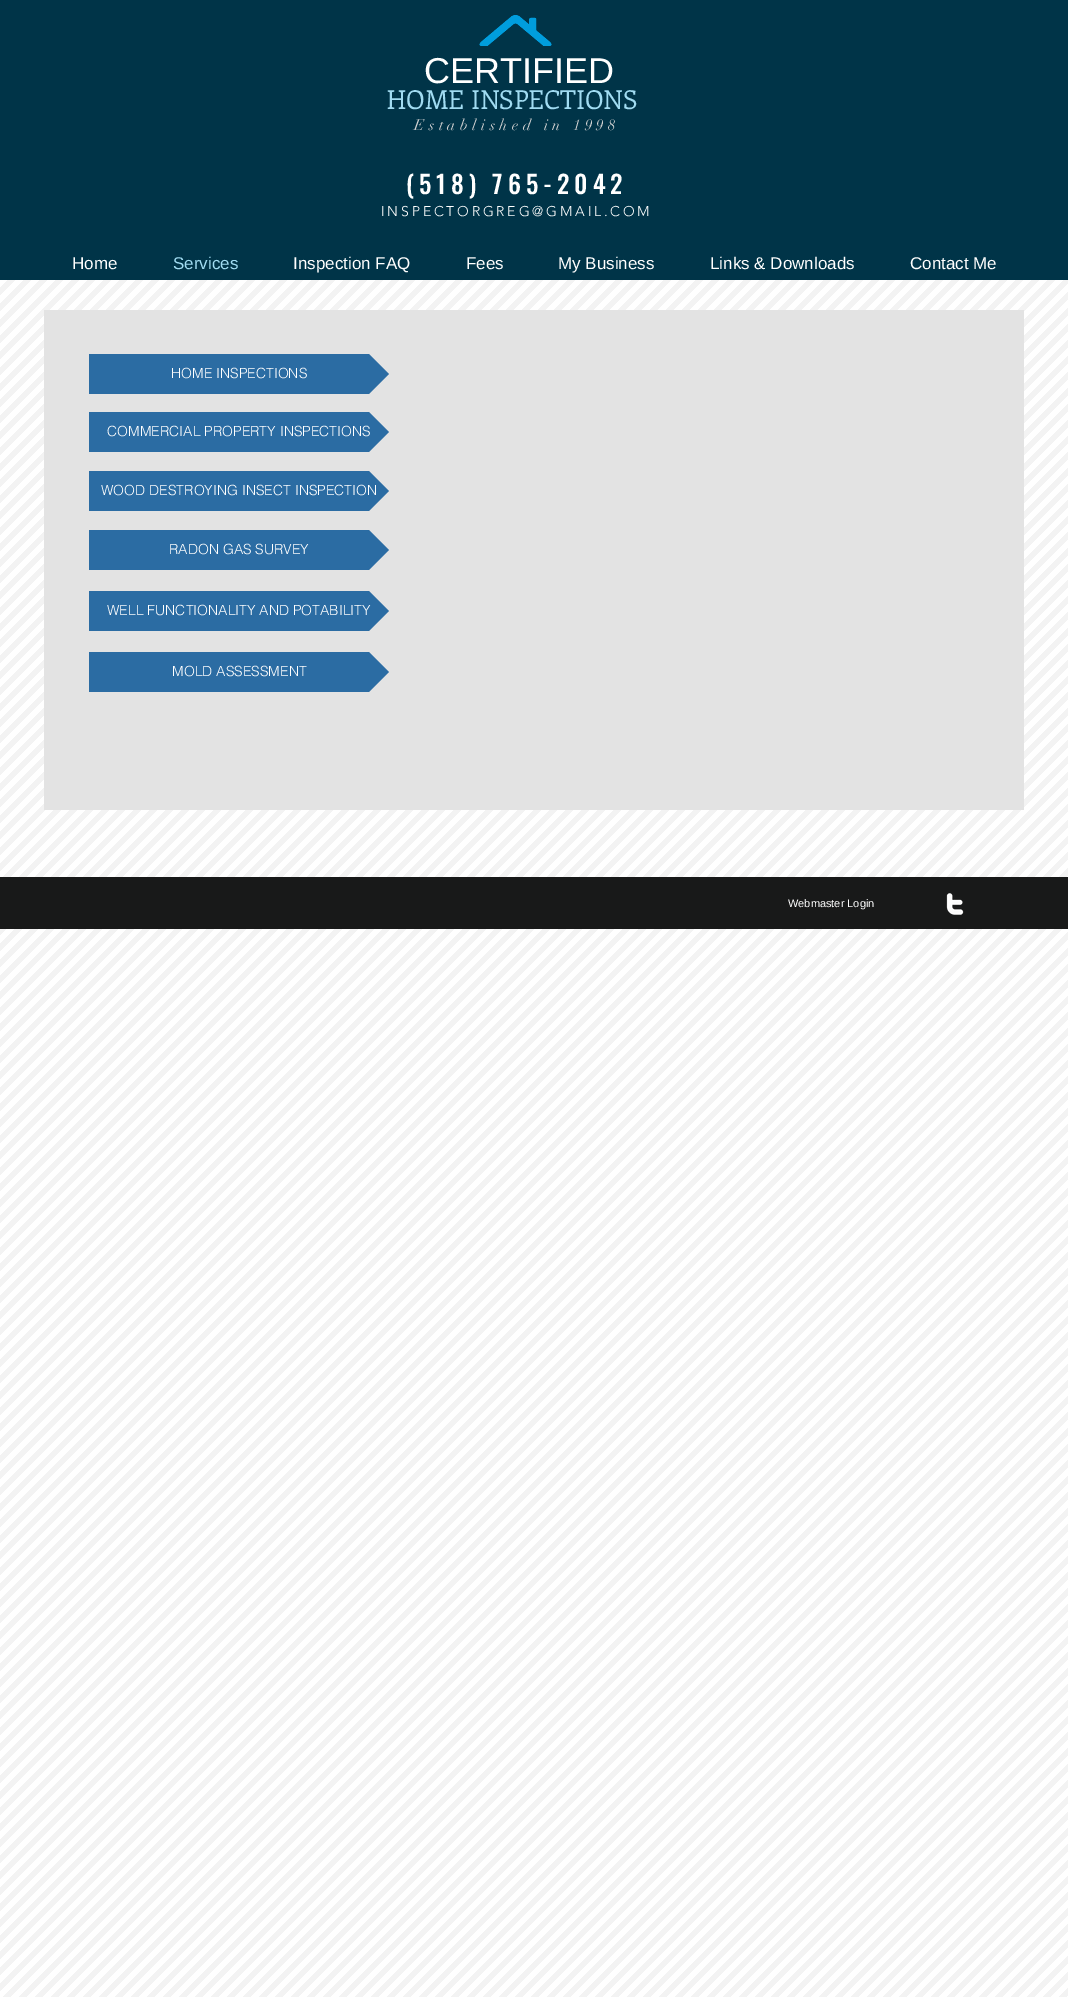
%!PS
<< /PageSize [1068 1997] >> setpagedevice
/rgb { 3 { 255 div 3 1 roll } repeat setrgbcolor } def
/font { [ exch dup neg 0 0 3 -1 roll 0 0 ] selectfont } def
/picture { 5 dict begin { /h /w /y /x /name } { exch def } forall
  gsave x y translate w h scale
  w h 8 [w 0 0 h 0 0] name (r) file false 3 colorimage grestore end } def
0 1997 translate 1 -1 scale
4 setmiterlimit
255 255 255 rgb
0 0 1068 1997 rectfill
0 52 72 rgb
0 0 1068 280 rectfill
(img/1.rgb) 479 15 73 31 picture
(img/3.rgb) 0 280 1068 1717 picture
227 227 227 rgb
44 310 980 500 rectfill
43 108 163 rgb
89 354 250 40 rectfill
gsave
89 354 300 40 rectclip
389 374 moveto 339 374 lineto 339 324 lineto closepath 339 374 moveto 389 374 lineto 339 424 lineto closepath fill
grestore
89 412 250 40 rectfill
gsave
89 412 300 40 rectclip
389 432 moveto 339 432 lineto 339 382 lineto closepath 339 432 moveto 389 432 lineto 339 482 lineto closepath fill
grestore
89 471 250 40 rectfill
gsave
89 471 300 40 rectclip
389 491 moveto 339 491 lineto 339 441 lineto closepath 339 491 moveto 389 491 lineto 339 541 lineto closepath fill
grestore
89 530 250 40 rectfill
gsave
89 530 300 40 rectclip
389 550 moveto 339 550 lineto 339 500 lineto closepath 339 550 moveto 389 550 lineto 339 600 lineto closepath fill
grestore
89 591 250 40 rectfill
gsave
89 591 300 40 rectclip
389 611 moveto 339 611 lineto 339 561 lineto closepath 339 611 moveto 389 611 lineto 339 661 lineto closepath fill
grestore
89 652 250 40 rectfill
gsave
89 652 300 40 rectclip
389 672 moveto 339 672 lineto 339 622 lineto closepath 339 672 moveto 389 672 lineto 339 722 lineto closepath fill
grestore
24 25 25 rgb
0 877 1068 52 rectfill
(img/2.rgb) 946 893 18 22 picture
/LiberationSans-Regular 36 font
255 255 255 rgb
424 83 moveto (CERTIFIED) show
/Enriqueta-Regular 26 font
161 220 242 rgb
387 109 moveto (HOME INSPECTIONS) show
/didot-Regular 15 font
212 212 212 rgb
414 130 moveto 4.5 0 (Established in 1998) ashow
/Oswald-Medium 25 font
255 255 255 rgb
406 194 moveto 5 0 (\(518\) 765-2042) ashow
/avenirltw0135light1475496-Light 14 font
381 216 moveto 2.8 0 (INSPECTORGREG@GMAIL.COM) ashow
/LiberationSans-Regular 17 font
72 269 moveto (Home) show
161 220 242 rgb
173 269 moveto (Services) show
255 255 255 rgb
[
  [(Inspection FAQ) 293 269]
  [(Fees) 466 269]
  [(My Business) 558 269]
  [(Links & Downloads) 710 269]
  [(Contact Me) 910 269]
] { aload pop moveto show } forall
/helvetica-Light 14 font
[
  [(HOME INSPECTIONS) 171 378]
  [(COMMERCIAL PROPERTY INSPECTIONS) 107 436]
  [(WOOD DESTROYING INSECT INSPECTION) 101 495]
  [(RADON GAS SURVEY) 169 554]
  [(WELL FUNCTIONALITY AND POTABILITY) 107 615]
  [(MOLD ASSESSMENT) 172 676]
] { aload pop moveto show } forall
/LiberationSans-Regular 11 font
788 907 moveto (Webmaster Login) show
showpage
